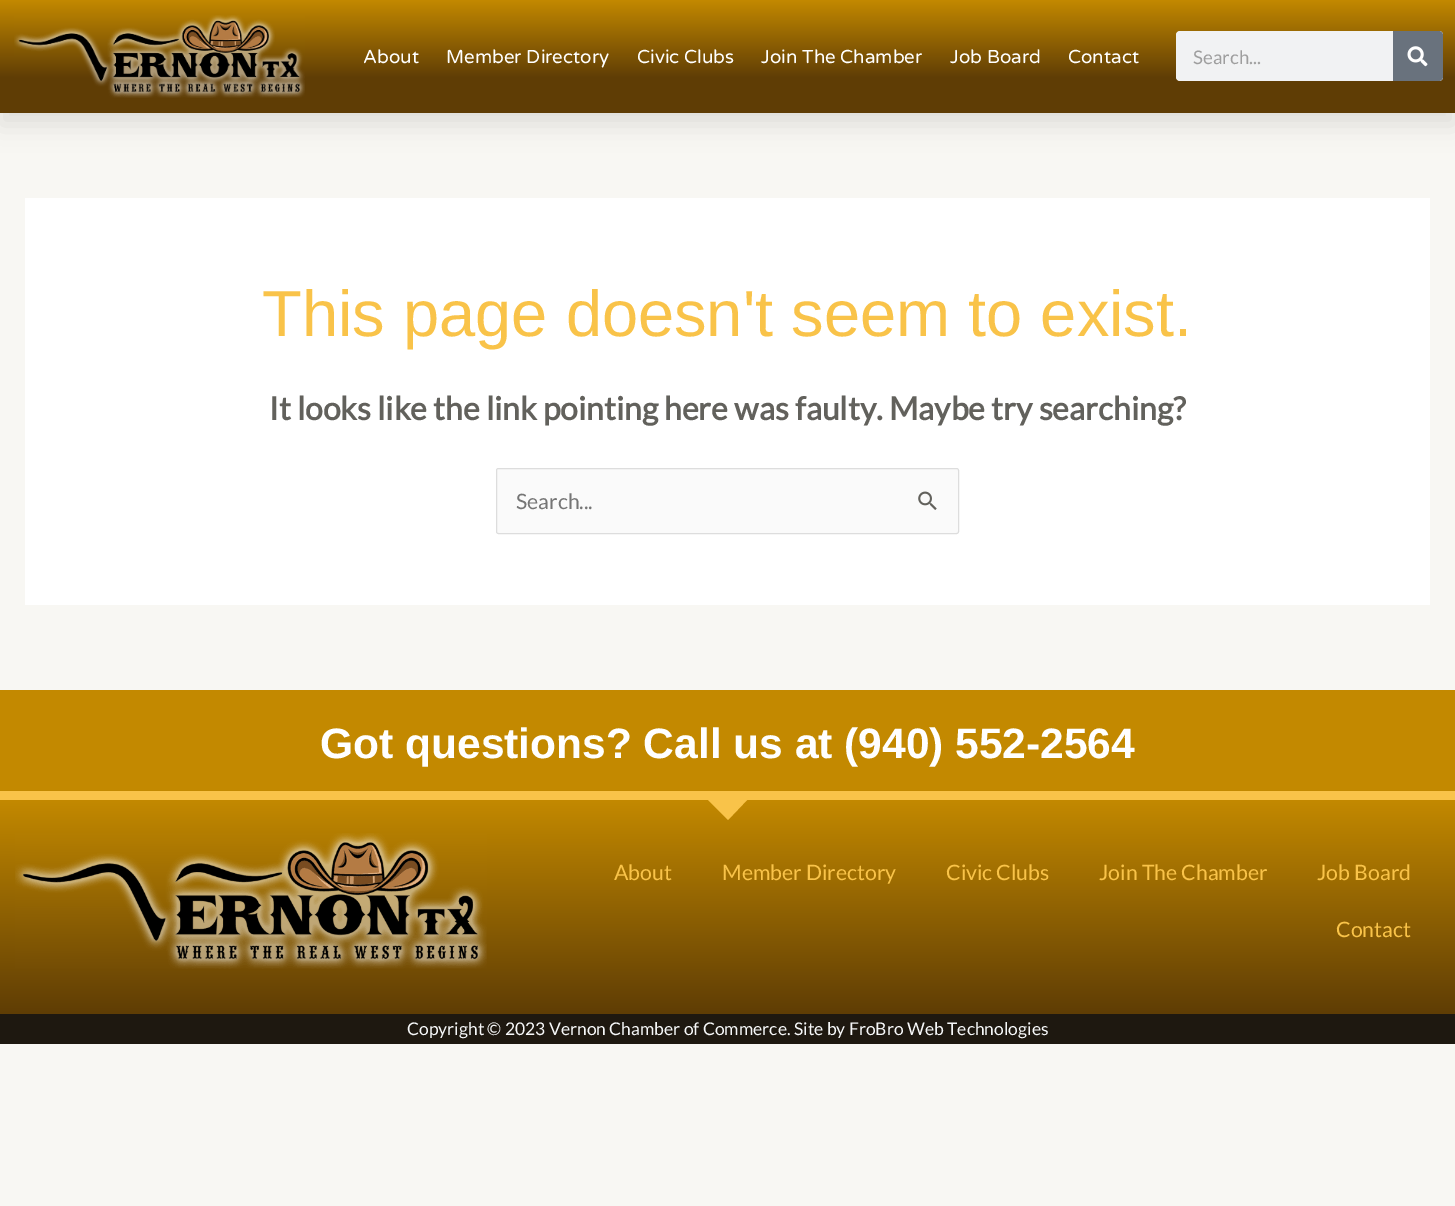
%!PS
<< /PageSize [1455 1206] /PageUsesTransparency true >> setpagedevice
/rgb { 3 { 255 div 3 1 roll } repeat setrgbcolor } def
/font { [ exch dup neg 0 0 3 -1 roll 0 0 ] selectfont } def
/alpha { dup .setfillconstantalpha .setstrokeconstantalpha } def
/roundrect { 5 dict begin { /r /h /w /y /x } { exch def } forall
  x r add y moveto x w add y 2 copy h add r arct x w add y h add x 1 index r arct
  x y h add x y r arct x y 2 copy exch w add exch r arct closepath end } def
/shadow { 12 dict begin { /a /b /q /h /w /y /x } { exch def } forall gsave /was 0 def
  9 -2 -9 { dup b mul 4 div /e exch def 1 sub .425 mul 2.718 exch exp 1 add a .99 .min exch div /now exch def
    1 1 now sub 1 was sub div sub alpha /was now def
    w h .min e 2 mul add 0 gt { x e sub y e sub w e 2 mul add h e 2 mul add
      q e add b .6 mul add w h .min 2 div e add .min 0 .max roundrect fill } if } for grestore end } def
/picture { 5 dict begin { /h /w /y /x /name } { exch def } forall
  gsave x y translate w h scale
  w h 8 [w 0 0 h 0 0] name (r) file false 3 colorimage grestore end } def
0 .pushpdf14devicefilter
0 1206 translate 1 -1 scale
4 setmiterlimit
248 247 243 rgb
0 0 1455 1206 rectfill
0 0 0 rgb
0 13 1455 112 0 12.5 0.1 shadow
gsave 0 0 moveto 1455 0 lineto 1455 113 lineto 0 113 lineto closepath clip newpath
<< /ShadingType 2 /ColorSpace /DeviceRGB /Coords [728 0 728 113] /Extend [true true] /Function << /FunctionType 3 /Domain [0 1] /Functions [<< /FunctionType 2 /Domain [0 1] /C0 [0.765 0.537 0] /C1 [0.373 0.239 0.02] /N 1 >> << /FunctionType 2 /Domain [0 1] /C0 [0.373 0.239 0.02] /C1 [0.373 0.239 0.02] /N 1 >>] /Bounds [0.69] /Encode [0 1 0 1] >> >> shfill grestore
(img/1.rgb) 14 15 291 83 picture
241 242 243 rgb
1176 31 267 50 4 roundrect fill
105 114 125 rgb
1393 31 moveto 1439 31 lineto 1441 31 1443 33 1443 35 curveto 1443 77 lineto 1443 79 1441 81 1439 81 curveto 1393 81 lineto closepath fill
(img/2.rgb) 1407 46 21 21 picture
255 255 255 rgb
25 198 1405 407 rectfill
250 250 250 rgb
496.5 468.5 462 65 2 roundrect gsave fill grestore
221 221 221 rgb
stroke
(img/3.rgb) 918 491 19 19 picture
195 137 0 rgb
0 690 1455 101 rectfill
249 195 73 rgb
0 791 1455 9 rectfill
gsave 0 800 moveto 1455 800 lineto 1455 1014 lineto 0 1014 lineto closepath clip newpath
<< /ShadingType 2 /ColorSpace /DeviceRGB /Coords [728 800 728 1014] /Extend [true true] /Function << /FunctionType 2 /Domain [0 1] /C0 [0.765 0.537 0] /C1 [0.373 0.239 0.02] /N 1 >> >> shfill grestore
728 820 moveto 707 799 lineto 748 799 lineto closepath fill
(img/4.rgb) 15 833 472 136 picture
30 24 16 rgb
0 1014 1455 30 rectfill
/VarelaRound-Regular 18.75 font
255 255 255 rgb
[
  [(About) 363 63]
  [(Member Directory) 446 63]
  [(Civic Clubs) 637 63]
  [(Join The Chamber) 761 63]
  [(Job Board) 950 63]
  [(Contact) 1068 63]
] { aload pop moveto show } forall
/Lato-Regular 18.75 font
158 158 158 rgb
1193 64 moveto (Search...) show
/LiberationSans-Regular 65 font
249 195 73 rgb
262 336 moveto (This page doesn't seem to exist.) show
/Lato-Bold 31.9 font
98 97 92 rgb
269 420 moveto (It looks like the link pointing here was faulty. Maybe try searching?) show
/Lato-Regular 21.25 font
117 117 117 rgb
516 509 moveto (Search...) show
/LiberationSans-Bold 42.5 font
255 255 255 rgb
320 758 moveto (Got questions? Call us at \(940\) 552-2564) show
/Lato-Regular 21.25 font
249 195 73 rgb
[
  [(About) 614 880]
  [(Member Directory) 722 880]
  [(Civic Clubs) 946 880]
  [(Join The Chamber) 1099 880]
  [(Job Board) 1317 880]
  [(Contact) 1336 937]
] { aload pop moveto show } forall
/Lato-Regular 17.5 font
246 247 248 rgb
407 1035 moveto (Copyright © 2023 Vernon Chamber of Commerce. Site by FroBro Web Technologies) show
.poppdf14devicefilter showpage
